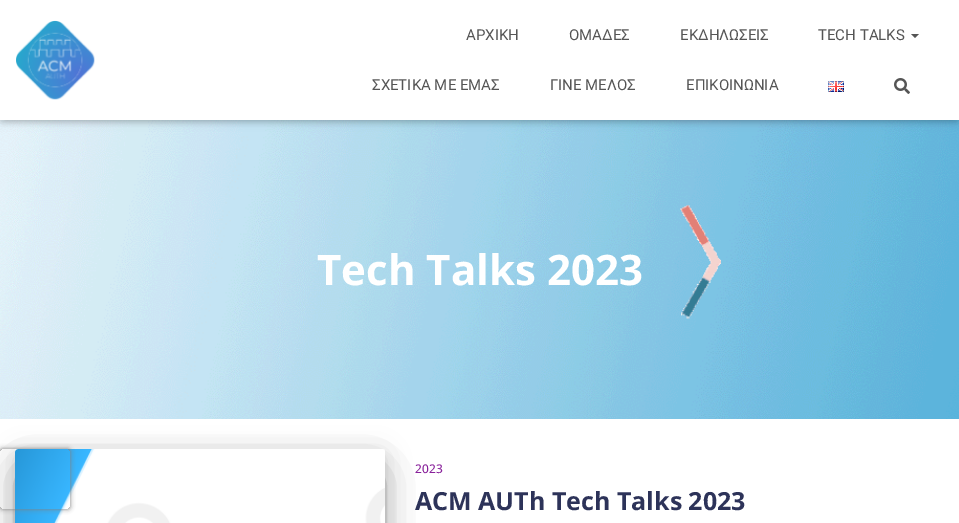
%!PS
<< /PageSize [959 523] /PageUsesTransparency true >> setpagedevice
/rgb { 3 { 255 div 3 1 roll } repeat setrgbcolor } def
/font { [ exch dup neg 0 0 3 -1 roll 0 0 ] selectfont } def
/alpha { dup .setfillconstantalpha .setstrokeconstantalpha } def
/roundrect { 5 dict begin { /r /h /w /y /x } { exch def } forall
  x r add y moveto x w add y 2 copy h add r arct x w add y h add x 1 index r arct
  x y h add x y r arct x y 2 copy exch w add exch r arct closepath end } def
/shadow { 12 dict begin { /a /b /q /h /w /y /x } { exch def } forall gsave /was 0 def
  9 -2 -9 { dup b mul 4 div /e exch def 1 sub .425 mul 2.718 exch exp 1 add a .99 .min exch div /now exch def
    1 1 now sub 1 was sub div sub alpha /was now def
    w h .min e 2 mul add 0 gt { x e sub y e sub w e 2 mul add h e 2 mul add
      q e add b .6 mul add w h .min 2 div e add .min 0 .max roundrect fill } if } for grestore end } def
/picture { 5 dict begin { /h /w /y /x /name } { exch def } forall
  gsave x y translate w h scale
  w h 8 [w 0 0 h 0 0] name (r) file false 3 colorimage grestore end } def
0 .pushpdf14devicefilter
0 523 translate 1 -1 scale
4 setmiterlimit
255 255 255 rgb
0 0 959 523 rectfill
0 0 0 rgb
20 462 360 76 0 5 0.2 shadow
(img/4.rgb) 0 120 959 299 picture
15 453 370 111 3 12.5 0.12 shadow
27 477 346 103 0 19 0.56 shadow
(img/5.rgb) 15 449 370 74 picture
gsave
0 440 moveto 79 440 lineto 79 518 lineto 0 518 lineto closepath 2 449 moveto 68 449 lineto 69 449 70 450 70 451 curveto 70 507 lineto 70 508 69 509 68 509 curveto 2 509 lineto 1 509 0 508 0 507 curveto 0 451 lineto 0 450 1 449 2 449 curveto closepath eoclip newpath
128 128 128 rgb
0 449 70 60 2 2.5 1 shadow
grestore
2 6 955 116 0 2.5 0.1 shadow
0 1 959 120 0 5 0.12 shadow
6 7 947 108 0 5 0.42 shadow
255 255 255 rgb
0 0 959 120 rectfill
(img/1.rgb) 16 20 79 80 picture
85 85 85 rgb
911 34 moveto 919 34 lineto 915 38 lineto closepath fill
(img/2.rgb) 828 81 16 11 picture
(img/3.rgb) 894 78 16 16 picture
/Roboto-Regular 15 font
[
  [(ΑΡΧΙΚΗ) 466 40]
  [(ΟΜΑΔΕΣ) 569 40]
  [(ΕΚΔΗΛΩΣΕΙΣ) 680 40]
  [(TECH TALKS) 818 40]
  [(ΣΧΕΤΙΚΑ ΜΕ ΕΜΑΣ) 372 90]
  [(ΓΙΝΕ ΜΕΛΟΣ) 550 90]
  [(ΕΠΙΚΟΙΝΩΝΙΑ) 686 90]
] { aload pop moveto show } forall
/OpenSans-Bold 42 font
255 255 255 rgb
317 285 moveto (Tech Talks 2023) show
/OpenSans-Medium 12 font
137 34 155 rgb
415 473 moveto (2023) show
/OpenSans-Bold 25 font
45 51 89 rgb
415 510 moveto (ACM AUTh Tech Talks 2023) show
.poppdf14devicefilter showpage
